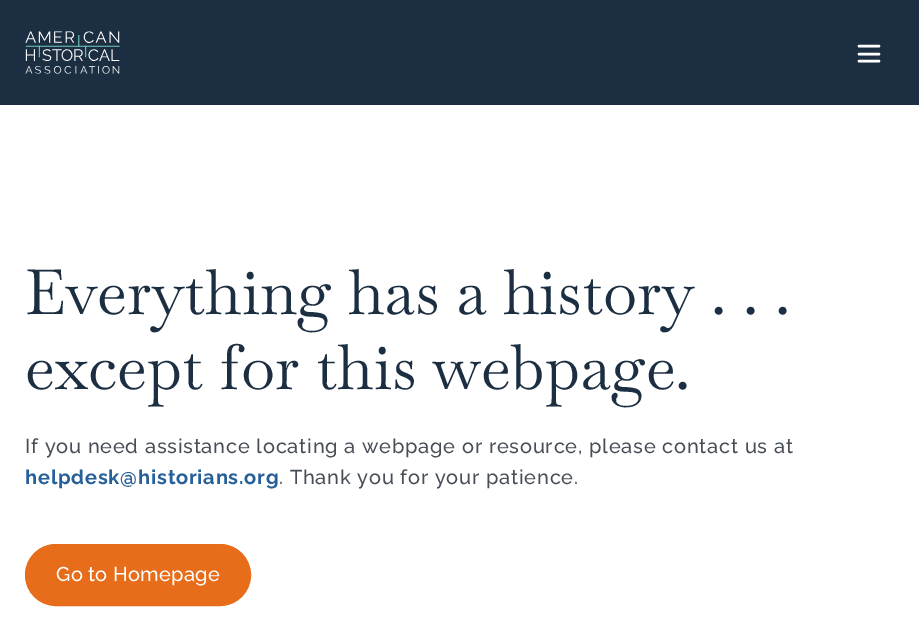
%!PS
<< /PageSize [919 622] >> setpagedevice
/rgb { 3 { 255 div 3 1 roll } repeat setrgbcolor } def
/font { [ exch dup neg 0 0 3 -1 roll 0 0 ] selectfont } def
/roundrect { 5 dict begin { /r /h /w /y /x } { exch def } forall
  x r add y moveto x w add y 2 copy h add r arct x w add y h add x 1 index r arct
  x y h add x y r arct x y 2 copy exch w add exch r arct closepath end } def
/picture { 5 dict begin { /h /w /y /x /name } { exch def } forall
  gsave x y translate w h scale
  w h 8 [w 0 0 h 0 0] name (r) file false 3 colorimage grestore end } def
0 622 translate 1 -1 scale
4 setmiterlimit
255 255 255 rgb
0 0 919 622 rectfill
28 47 66 rgb
0 0 919 105 rectfill
(img/1.rgb) 25 31 95 43 picture
255 255 255 rgb
2.5 setlinewidth
1 setlinecap
1 setlinejoin
859 46 moveto 879 46 lineto 859 54 moveto 879 54 lineto 859 61 moveto 879 61 lineto stroke
231 109 26 rgb
25.5 544.5 225 61 30.5 roundrect gsave fill grestore
1 setlinewidth
0 setlinecap
0 setlinejoin
stroke
/Baskervville-Regular 62.5 font
28 47 66 rgb
25 314 moveto (Everything has a history . . .) show
25 389 moveto (except for this webpage.) show
/Raleway-Medium 20 font
72 78 87 rgb
25 453 moveto 0.8 0 (If you need assistance locating a webpage or resource, please contact us at) ashow
/Raleway-Bold 20 font
38 96 153 rgb
25 484 moveto 0.8 0 (helpdesk@historians.org) ashow
/Raleway-Medium 20 font
72 78 87 rgb
279 484 moveto 0.8 0 (. Thank you for your patience.) ashow
255 255 255 rgb
56 581 moveto 0.25 0 (Go to Homepage) ashow
showpage
